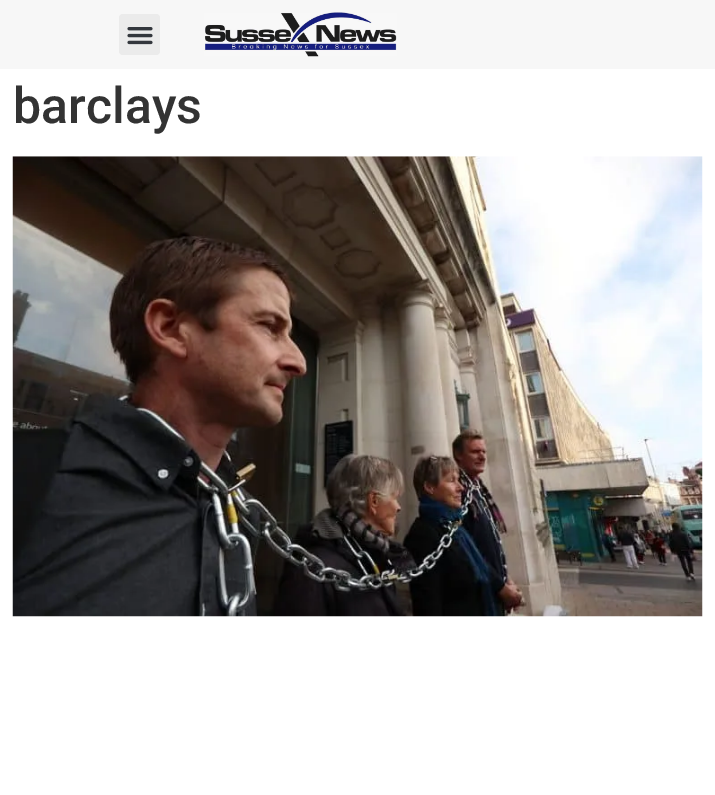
%!PS
<< /PageSize [715 795] >> setpagedevice
/rgb { 3 { 255 div 3 1 roll } repeat setrgbcolor } def
/font { [ exch dup neg 0 0 3 -1 roll 0 0 ] selectfont } def
/roundrect { 5 dict begin { /r /h /w /y /x } { exch def } forall
  x r add y moveto x w add y 2 copy h add r arct x w add y h add x 1 index r arct
  x y h add x y r arct x y 2 copy exch w add exch r arct closepath end } def
/picture { 5 dict begin { /h /w /y /x /name } { exch def } forall
  gsave x y translate w h scale
  w h 8 [w 0 0 h 0 0] name (r) file false 3 colorimage grestore end } def
0 795 translate 1 -1 scale
4 setmiterlimit
255 255 255 rgb
0 0 715 795 rectfill
247 247 247 rgb
0 0 715 69 rectfill
235 235 235 rgb
119 14 41 41 4 roundrect fill
(img/1.rgb) 127 27 26 18 picture
(img/2.rgb) 204 12 193 45 picture
(img/3.rgb) 12 156 691 461 picture
/Roboto-Medium 50 font
51 51 51 rgb
13 123 moveto (barclays) show
showpage
